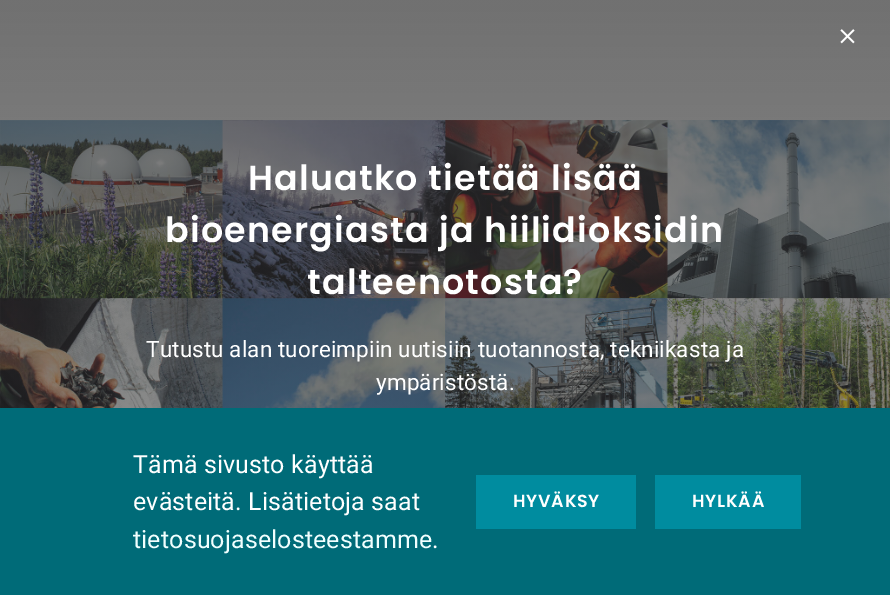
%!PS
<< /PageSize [890 595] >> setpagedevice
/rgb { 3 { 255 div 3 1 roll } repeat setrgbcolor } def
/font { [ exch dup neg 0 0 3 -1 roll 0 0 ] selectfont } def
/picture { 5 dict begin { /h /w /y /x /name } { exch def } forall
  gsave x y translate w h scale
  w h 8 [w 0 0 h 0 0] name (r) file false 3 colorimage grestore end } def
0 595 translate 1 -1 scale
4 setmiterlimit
255 255 255 rgb
0 0 890 595 rectfill
(img/2.rgb) 0 0 890 408 picture
(img/1.rgb) 840 29 15 15 picture
[
  [0 408 890 187 0 107 120]
  [476 475 160 54 0 140 159]
  [655 475 146 54 0 140 159]
] { aload pop rgb rectfill } forall
/Poppins-SemiBold 34.8 font
255 255 255 rgb
248 190 moveto 1.25 0 (Haluatko tietää lisää) ashow
165 242 moveto 1.25 0 (bioenergiasta ja hiilidioksidin) ashow
307 294 moveto 1.25 0 (talteenotosta?) ashow
/Roboto-Regular 22.5 font
146 357 moveto 0.12 0 (Tutustu alan tuoreimpiin uutisiin tuotannosta, tekniikasta ja) ashow
376 390 moveto 0.12 0 (ympäristöstä.) ashow
/Roboto-Regular 25 font
133 473 moveto 0.12 0 (Tämä sivusto käyttää) ashow
133 510 moveto 0.12 0 (evästeitä. Lisätietoja saat) ashow
241 255 255 rgb
133 548 moveto 0.12 0 (tietosuojaselosteestamme) ashow
255 255 255 rgb
432 548 moveto 0.12 0 (.) ashow
/Poppins-SemiBold 17.5 font
513 507 moveto 0.75 0 (HYVÄKSY) ashow
692 507 moveto 0.75 0 (HYLKÄÄ) ashow
showpage
